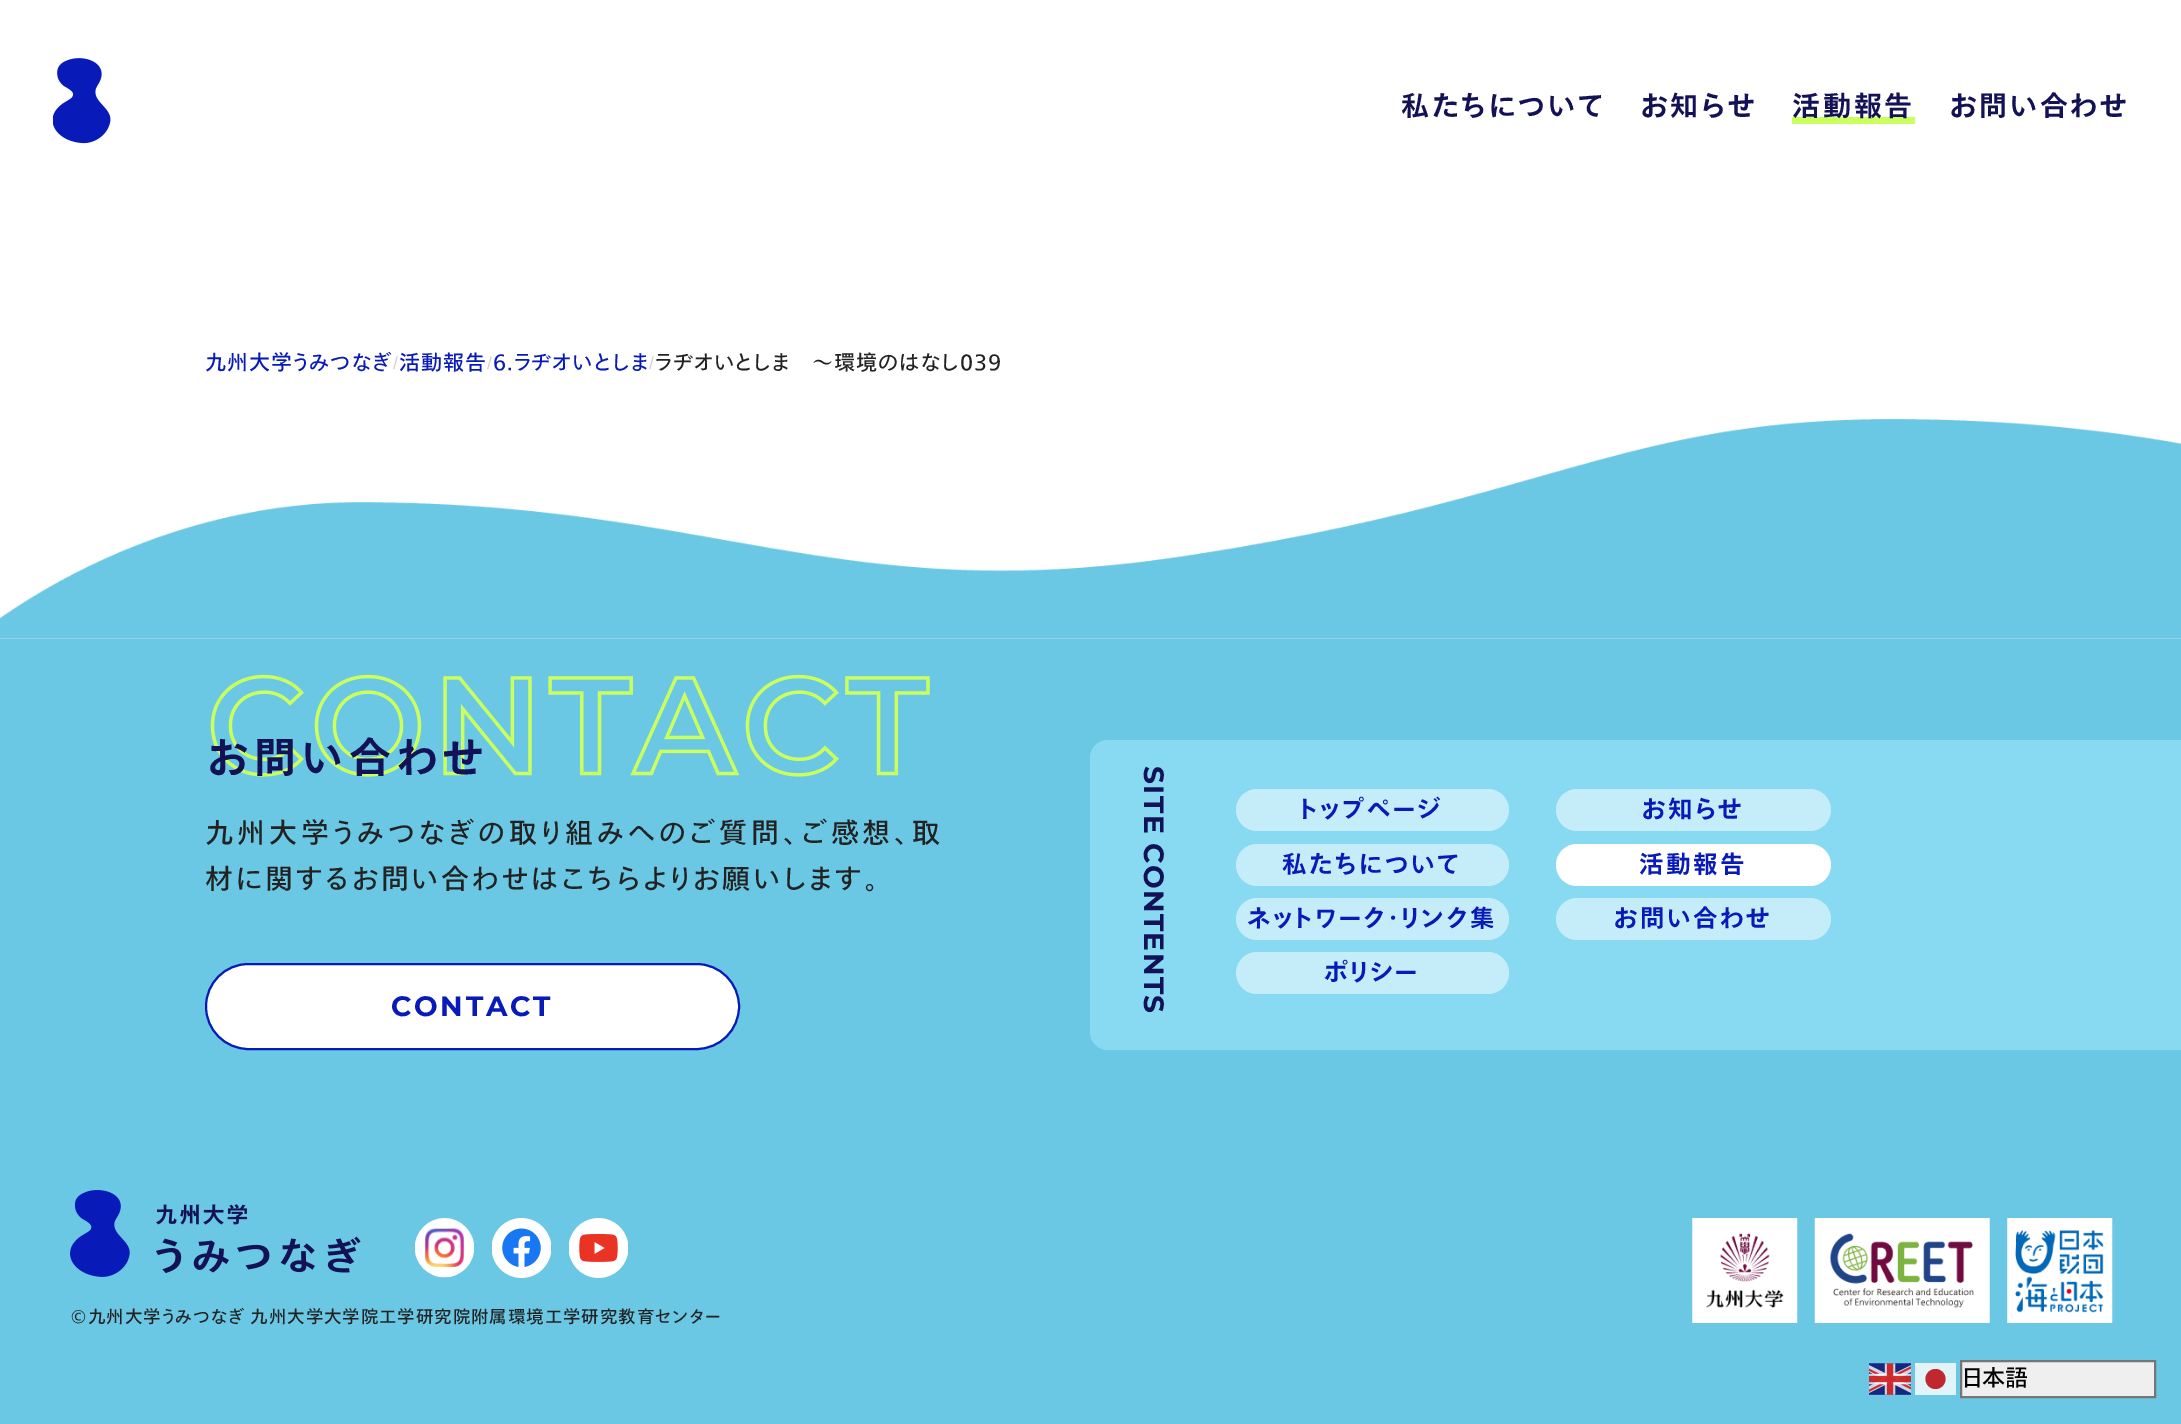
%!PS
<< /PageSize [2181 1424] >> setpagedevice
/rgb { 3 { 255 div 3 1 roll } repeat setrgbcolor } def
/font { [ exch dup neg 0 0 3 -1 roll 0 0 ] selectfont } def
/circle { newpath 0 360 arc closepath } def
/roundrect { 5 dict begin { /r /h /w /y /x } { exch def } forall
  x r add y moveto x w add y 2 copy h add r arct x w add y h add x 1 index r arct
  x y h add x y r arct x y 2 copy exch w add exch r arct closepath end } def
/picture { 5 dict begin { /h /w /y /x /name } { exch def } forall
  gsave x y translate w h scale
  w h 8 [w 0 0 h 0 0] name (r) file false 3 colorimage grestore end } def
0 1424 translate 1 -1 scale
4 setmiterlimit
255 255 255 rgb
0 0 2181 1424 rectfill
(img/1.rgb) 53 58 58 86 picture
203 255 94 rgb
1792 117 123 7 rectfill
106 200 229 rgb
0 639 2181 785 rectfill
(img/2.rgb) 0 419 2181 220 picture
(img/3.rgb) 210 674 720 103 picture
255 255 255 rgb
206 964 533 85 42.5 roundrect gsave fill grestore
8 26 184 rgb
2 setlinewidth
stroke
136 217 242 rgb
1108 740 moveto 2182 740 lineto 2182 1050 lineto 1108 1050 lineto 1098 1050 1090 1042 1090 1032 curveto 1090 758 lineto 1090 748 1098 740 1108 740 curveto closepath fill
196 236 249 rgb
1236 789 273 42 21 roundrect fill
1556 789 275 42 21 roundrect fill
1236 844 273 42 21 roundrect fill
255 255 255 rgb
1556 844 275 42 21 roundrect fill
196 236 249 rgb
1236 898 273 42 21 roundrect fill
1556 898 275 42 21 roundrect fill
1236 952 273 42 21 roundrect fill
(img/4.rgb) 70 1190 291 87 picture
(img/5.rgb) 415 1218 59 60 picture
(img/6.rgb) 492 1218 59 60 picture
(img/7.rgb) 569 1218 59 60 picture
(img/8.rgb) 1692 1218 106 105 picture
(img/9.rgb) 1814 1218 176 105 picture
(img/10.rgb) 2007 1218 106 105 picture
(img/11.rgb) 1869 1363 42 32 picture
225 244 250 rgb
1915 1363 41 32 rectfill
239 239 239 rgb
1961 1361 moveto 2155 1361 lineto 2155 1397 lineto 1961 1397 lineto closepath gsave fill grestore
118 118 118 rgb
stroke
190 40 46 rgb
1935.5 1379 10 circle fill
/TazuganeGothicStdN-Bold 28 font
19 18 87 rgb
1401 116 moveto 2.8 0 (私たちについて) ashow
1641 116 moveto 2.8 0 (お知らせ) ashow
1792 116 moveto 2.8 0 (活動報告) ashow
1950 116 moveto 2.8 0 (お問い合わせ) ashow
/TazuganeGothicStdN-Regular 21 font
8 26 184 rgb
205 370 moveto 1 0 (九州大学うみつなぎ) ashow
/LiberationSans-Regular 17.5 font
209 209 217 rgb
393 369 moveto 1 0 (/) ashow
/TazuganeGothicStdN-Regular 21 font
8 26 184 rgb
399 370 moveto 1 0 (活動報告) ashow
/LiberationSans-Regular 17.5 font
209 209 217 rgb
487 369 moveto 1 0 (/) ashow
/TazuganeGothicStdN-Regular 21 font
8 26 184 rgb
493 370 moveto 1 0 (6.ラヂオいとしま) ashow
/LiberationSans-Regular 17.5 font
209 209 217 rgb
649 369 moveto 1 0 (/) ashow
/TazuganeGothicStdN-Regular 21 font
34 34 34 rgb
655 370 moveto 1 0 (ラヂオいとしま　～環境のはなし039) ashow
/TazuganeGothicStdN-Bold 42 font
19 18 87 rgb
208 773 moveto 6.25 0 (お問い合わせ) ashow
/TazuganeGothicStdN-Regular 28 font
34 34 34 rgb
205 843 moveto 3.9 0 (九州大学うみつなぎの取り組みへのご質問、ご感想、取) ashow
205 889 moveto 2.8 0 (材に関するお問い合わせはこちらよりお願いします。) ashow
/Montserrat-Bold 28 font
8 26 184 rgb
391 1016 moveto 2.8 0 (CONTACT) ashow
19 18 87 rgb
gsave 1144 766 translate 90 rotate 0 0 moveto -1 0 32 1.4 0 (SITE CONTENTS) awidthshow grestore
/TazuganeGothicStdN-Bold 24.5 font
8 26 184 rgb
1300 818 moveto 2.5 0 (トップページ) ashow
1642 818 moveto 2.5 0 (お知らせ) ashow
1282 873 moveto 2.5 0 (私たちについて) ashow
1639 873 moveto 2.5 0 (活動報告) ashow
1247 927 moveto 2.5 0 (ネットワーク・リンク集) ashow
1614 927 moveto 2.5 0 (お問い合わせ) ashow
1324 981 moveto 2.5 0 (ポリシー) ashow
/TazuganeGothicStdN-Regular 17.5 font
34 34 34 rgb
70 1323 moveto 0.9 0 (©九州大学うみつなぎ 九州大学大学院工学研究院附属環境工学研究教育センター) ashow
/TazuganeGothicStdN-Regular 23 font
0 0 0 rgb
1962 1386 moveto (日本語) show
showpage
